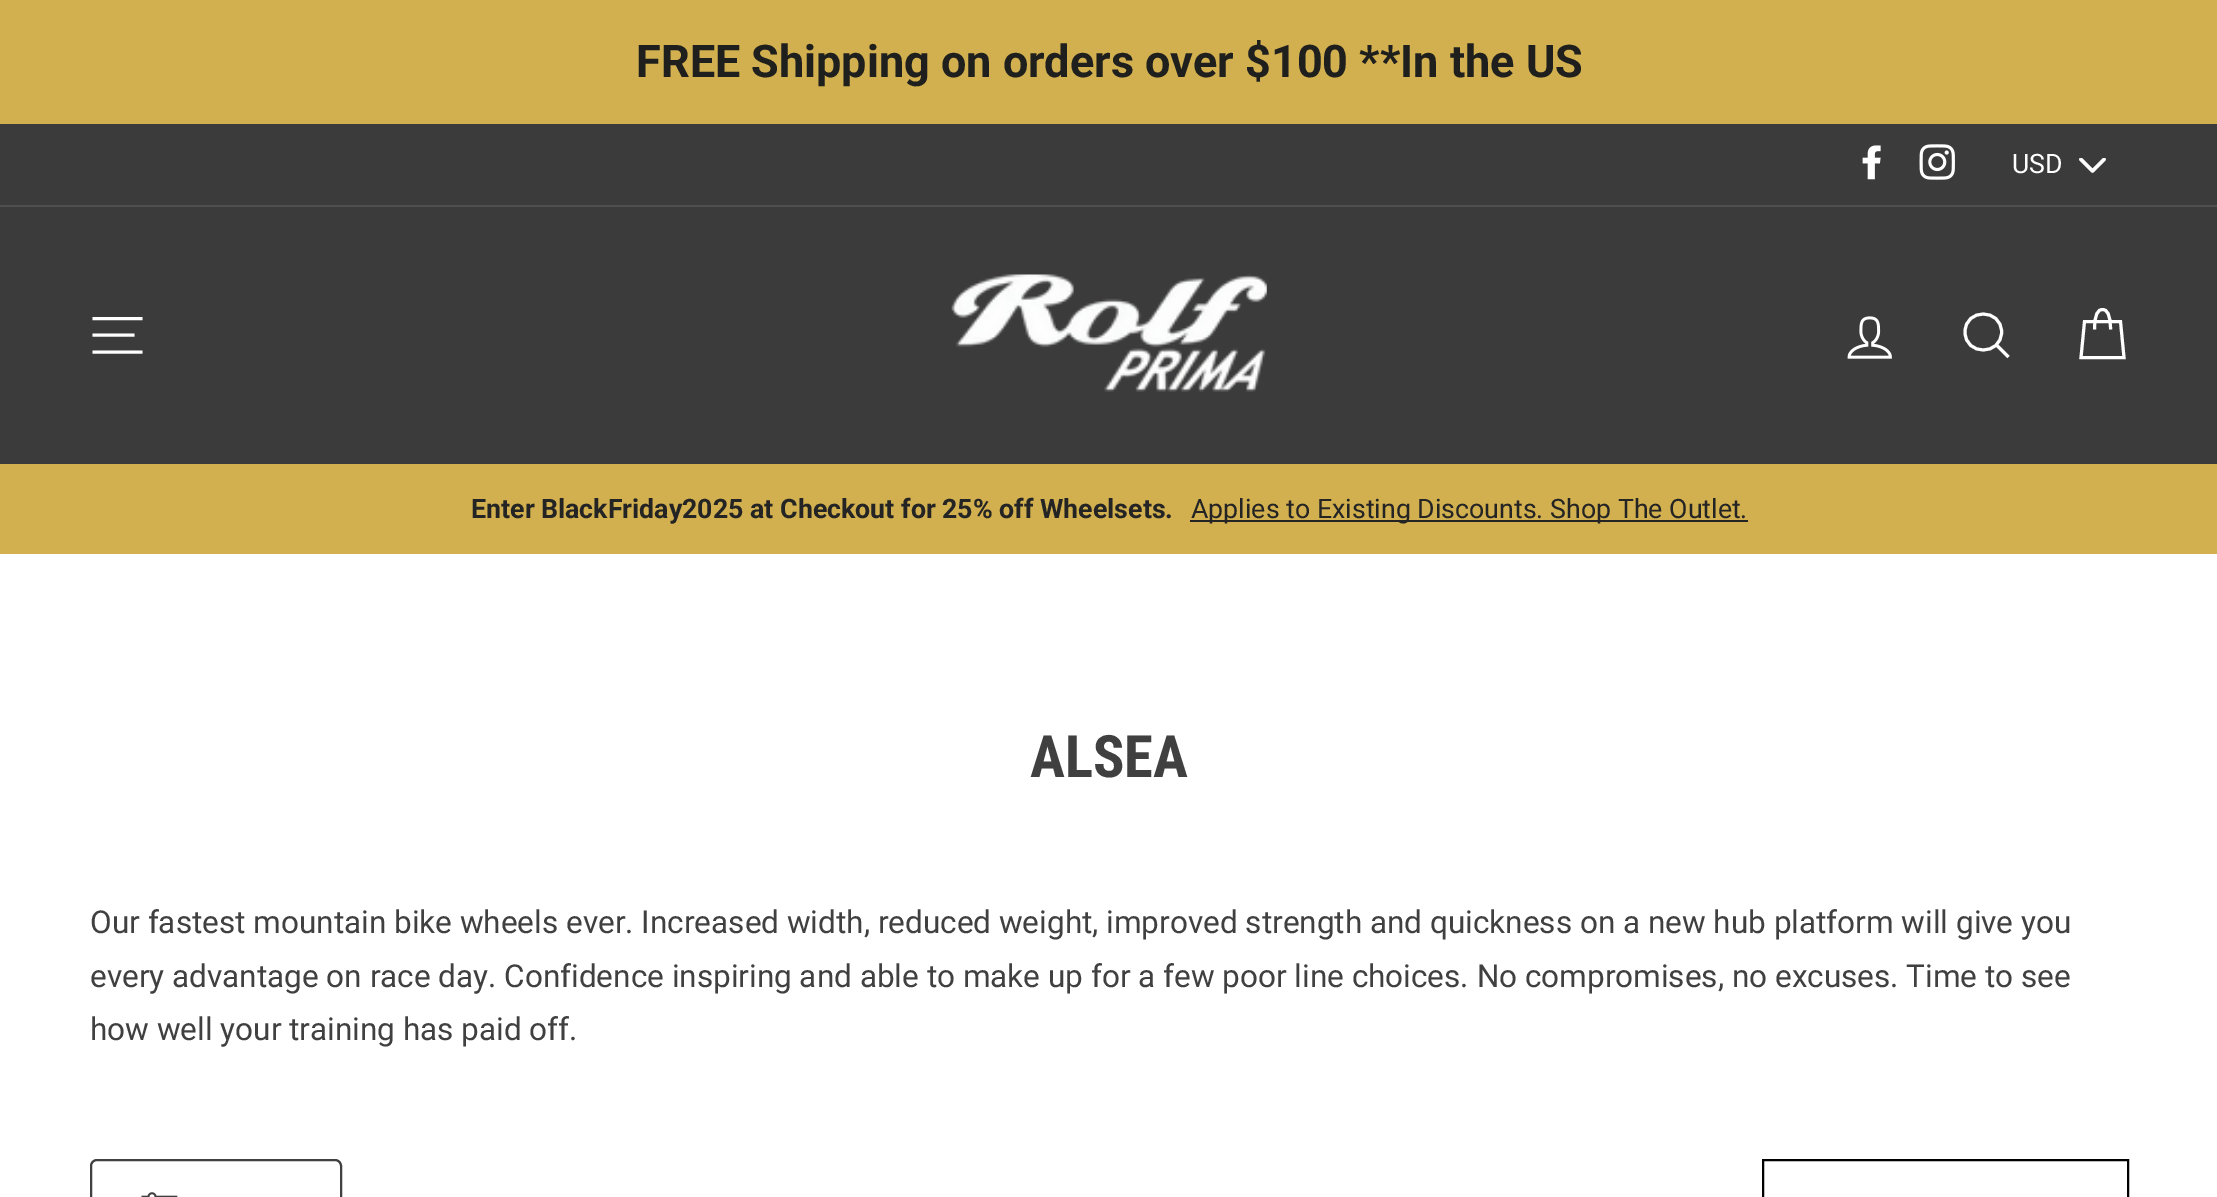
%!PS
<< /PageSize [2217 1197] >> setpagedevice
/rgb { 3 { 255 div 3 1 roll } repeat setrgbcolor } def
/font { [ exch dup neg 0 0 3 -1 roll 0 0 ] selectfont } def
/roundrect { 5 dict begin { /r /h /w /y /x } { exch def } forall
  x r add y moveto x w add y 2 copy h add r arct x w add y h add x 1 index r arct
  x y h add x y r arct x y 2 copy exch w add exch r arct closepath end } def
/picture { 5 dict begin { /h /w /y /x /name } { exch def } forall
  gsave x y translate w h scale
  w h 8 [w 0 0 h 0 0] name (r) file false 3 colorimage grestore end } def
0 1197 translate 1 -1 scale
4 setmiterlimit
255 255 255 rgb
0 0 2217 1197 rectfill
210 176 79 rgb
0 0 2217 124 rectfill
60 59 59 rgb
0 124 2217 81 rectfill
(img/1.rgb) 1862 145 19 35 picture
(img/2.rgb) 1919 144 36 36 picture
(img/3.rgb) 2079 158 27 15 picture
0 207 2217 257 rectfill
80 79 79 rgb
0 205 2217 2 rectfill
255 255 255 rgb
3 setlinewidth
92.5 318.5 moveto 142.5 318.5 lineto 92.5 335 moveto 134.5 335 lineto 92.5 352 moveto 142.5 352 lineto stroke
(img/4.rgb) 951 274 316 118 picture
(img/5.rgb) 1847 316 45 43 picture
2001.5 332 moveto 2001.5 356 1965 356 1965 332 curveto 1965 308 2001.5 308 2001.5 332 curveto closepath 2008.5 357 moveto 1996.5 345 lineto stroke
2094.5 329.5 moveto 2094.5 314 2098 309.5 2102.5 309.5 curveto 2107 309.5 2110.5 314 2110.5 329.5 curveto 2084.5 321.5 moveto 2120.5 321.5 lineto 2124 357.5 lineto 2081 357.5 lineto closepath stroke
210 176 79 rgb
0 464 2217 90 rectfill
36 36 36 rgb
1190 520 558 2 rectfill
64 64 64 rgb
2 setlinewidth
91 1160 250 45 6 roundrect stroke
(img/6.rgb) 141 1192 37 5 picture
0 0 0 rgb
1763 1160 365 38 rectstroke
/Roboto-Bold 45 font
31 32 30 rgb
636 77 moveto (FREE Shipping on orders over $100 **In the US) show
/Roboto-Regular 26.75 font
255 255 255 rgb
2012 173 moveto (USD) show
/Roboto-Bold 26.75 font
36 36 36 rgb
471 518 moveto (Enter BlackFriday2025 at Checkout for 25% off Wheelsets.) show
/Roboto-Regular 26.75 font
1191 518 moveto (Applies to Existing Discounts. Shop The Outlet.) show
/RobotoCondensed-Bold 58.5 font
64 64 64 rgb
1030 777 moveto (ALSEA) show
/Roboto-Regular 31.5 font
[
  [(Our fastest mountain bike wheels ever. Increased width, reduced weight, improved strength and quickness on a new hub platform will give you) 90 933]
  [(every advantage on race day. Confidence inspiring and able to make up for a few poor line choices. No compromises, no excuses. Time to see) 90 987]
  [(how well your training has paid off.) 90 1040]
] { aload pop moveto show } forall
showpage
